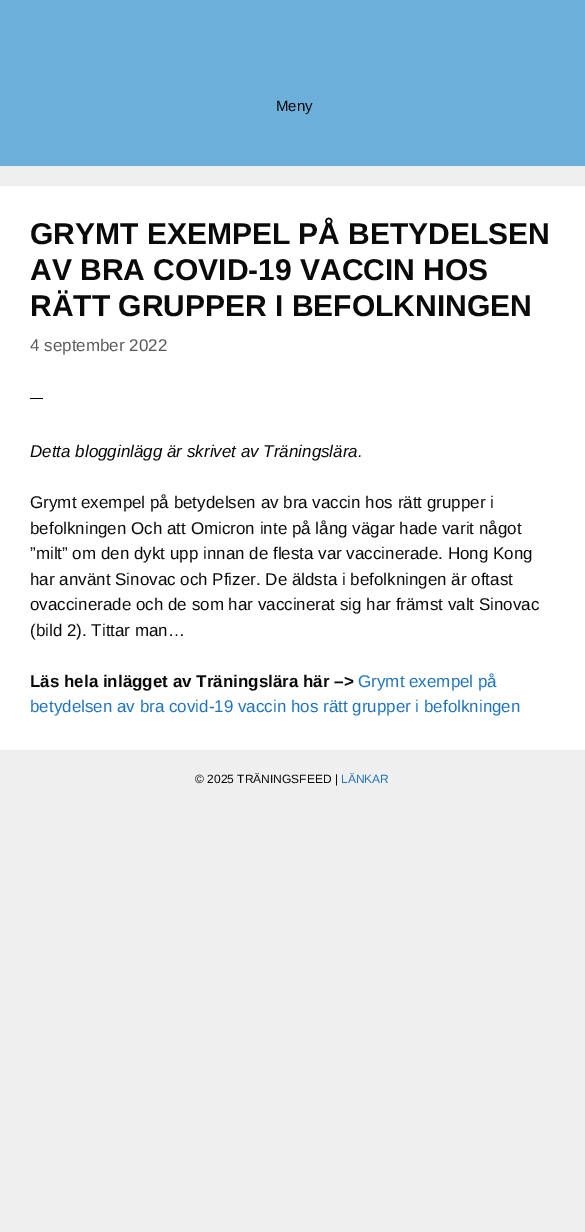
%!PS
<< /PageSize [585 1232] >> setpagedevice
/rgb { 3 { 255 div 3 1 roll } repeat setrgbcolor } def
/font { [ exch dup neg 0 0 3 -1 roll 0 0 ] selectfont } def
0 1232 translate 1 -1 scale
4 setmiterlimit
239 239 239 rgb
0 0 585 1232 rectfill
[
  [0 0 585 166 109 175 219]
  [0 186 585 564 255 255 255]
  [30 398 13 1 0 0 0]
] { aload pop rgb rectfill } forall
/Arimo-Regular 15 font
10 10 10 rgb
276 111 moveto (Meny) show
/Arimo-Bold 30 font
[
  [(GRYMT EXEMPEL PÅ BETYDELSEN) 30 244]
  [(AV BRA COVID-19 VACCIN HOS) 30 280]
  [(RÄTT GRUPPER I BEFOLKNINGEN) 30 316]
] { aload pop moveto show } forall
/Arimo-Regular 17 font
89 89 89 rgb
30 351 moveto (4 september 2022) show
/Arimo-Italic 17 font
10 10 10 rgb
30 457 moveto (Detta blogginlägg är skrivet av Träningslära.) show
/Arimo-Regular 17 font
[
  [(Grymt exempel på betydelsen av bra vaccin hos rätt grupper i) 30 508]
  [(befolkningen Och att Omicron inte på lång vägar hade varit något) 30 534]
  [(”milt” om den dykt upp innan de flesta var vaccinerade. Hong Kong) 30 559]
  [(har använt Sinovac och Pfizer. De äldsta i befolkningen är oftast) 30 585]
  [(ovaccinerade och de som har vaccinerat sig har främst valt Sinovac) 30 610]
  [(\(bild 2\). Tittar man…) 30 636]
] { aload pop moveto show } forall
/Arimo-Bold 17 font
30 687 moveto (Läs hela inlägget av Träningslära här –>) show
/Arimo-Regular 17 font
30 115 190 rgb
358 687 moveto (Grymt exempel på) show
30 712 moveto (betydelsen av bra covid-19 vaccin hos rätt grupper i befolkningen) show
/Arimo-Regular 12 font
10 10 10 rgb
195 783 moveto (© 2025 TRÄNINGSFEED |) show
30 115 190 rgb
341 783 moveto (LÄNKAR) show
showpage
